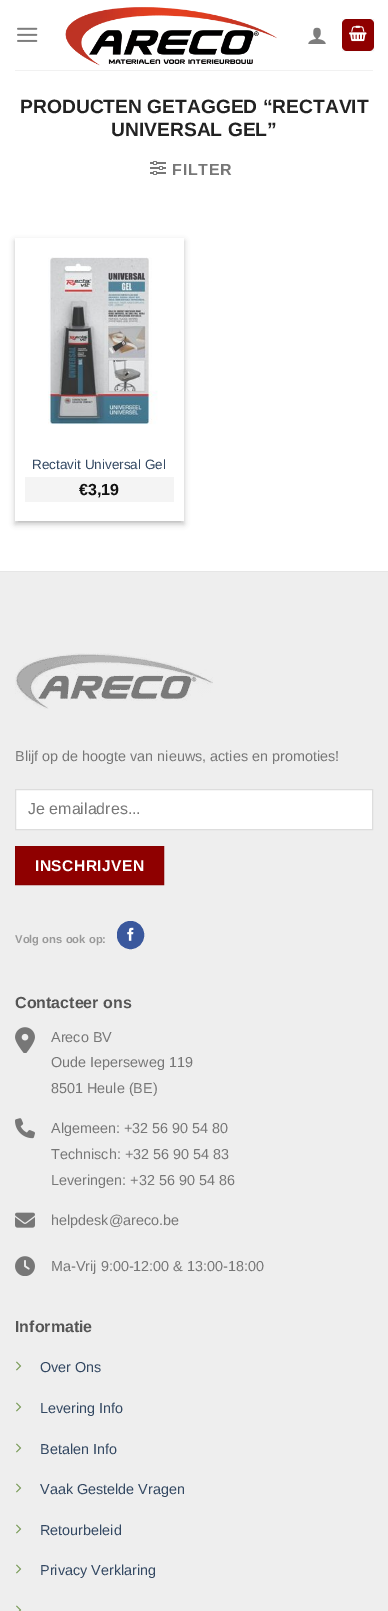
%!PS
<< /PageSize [388 1611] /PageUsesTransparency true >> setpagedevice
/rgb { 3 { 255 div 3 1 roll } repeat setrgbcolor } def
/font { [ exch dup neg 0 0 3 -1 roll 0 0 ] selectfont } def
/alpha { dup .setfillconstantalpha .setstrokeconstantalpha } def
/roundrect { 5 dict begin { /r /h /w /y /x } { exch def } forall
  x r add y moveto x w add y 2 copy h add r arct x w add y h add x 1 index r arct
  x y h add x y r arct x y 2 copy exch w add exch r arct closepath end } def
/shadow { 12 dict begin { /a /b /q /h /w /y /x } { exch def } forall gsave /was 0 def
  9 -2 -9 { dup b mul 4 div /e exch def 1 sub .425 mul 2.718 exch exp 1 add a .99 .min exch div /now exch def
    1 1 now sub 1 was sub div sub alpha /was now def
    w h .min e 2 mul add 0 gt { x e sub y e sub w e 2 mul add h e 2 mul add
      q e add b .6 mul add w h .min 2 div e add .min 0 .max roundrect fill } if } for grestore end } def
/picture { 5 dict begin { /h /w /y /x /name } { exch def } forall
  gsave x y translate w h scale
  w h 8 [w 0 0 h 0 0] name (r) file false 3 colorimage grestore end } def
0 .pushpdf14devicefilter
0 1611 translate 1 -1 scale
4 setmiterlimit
255 255 255 rgb
0 0 388 1611 rectfill
(img/1.rgb) 17 27 21 15 picture
(img/2.rgb) 65 7 212 59 picture
(img/3.rgb) 308 27 18 17 picture
143 0 0 rgb
342 19 32 32 5 roundrect fill
0.05 alpha
0 0 0 rgb
342.5 19.5 31 31 rectstroke
1 alpha
(img/4.rgb) 349 25 18 17 picture
241 241 241 rgb
15 70 358 1 rectfill
(img/5.rgb) 150 161 16 14 picture
gsave
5 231 moveto 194 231 lineto 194 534 lineto 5 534 lineto closepath 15 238 moveto 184 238 lineto 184 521 lineto 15 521 lineto closepath eoclip newpath
0 0 0 rgb
15 241 169 283 0 3 0.23 shadow
grestore
gsave
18 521 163 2 rectclip
0 0 0 rgb
19 245 161 275 0 3 0.16 shadow
grestore
(img/6.rgb) 48 257 110 168 picture
[
  [25 477 149 25 244 244 244]
  [0 571 388 1 230 230 230]
  [0 572 388 1039 238 238 238]
] { aload pop rgb rectfill } forall
(img/7.rgb) 15 653 198 56 picture
255 255 255 rgb
15.5 789.5 moveto 372.5 789.5 lineto 372.5 829.5 lineto 15.5 829.5 lineto closepath gsave fill grestore
221 221 221 rgb
stroke
143 0 0 rgb
15.5 846.5 moveto 163.5 846.5 lineto 163.5 884.5 lineto 15.5 884.5 lineto closepath gsave fill grestore
136 0 0 rgb
stroke
58 88 157 rgb
117.5 921.5 26 27 13 roundrect gsave fill grestore
stroke
(img/8.rgb) 127 927 7 14 picture
(img/9.rgb) 15 1027 20 26 picture
(img/10.rgb) 15 1118 20 21 picture
(img/11.rgb) 15 1212 20 16 picture
(img/12.rgb) 15 1256 20 20 picture
(img/13.rgb) 16 1361 6 10 picture
(img/13.rgb) 16 1402 6 10 picture
(img/13.rgb) 16 1443 6 10 picture
(img/13.rgb) 16 1483 6 10 picture
(img/13.rgb) 16 1524 6 10 picture
(img/13.rgb) 16 1564 6 10 picture
(img/14.rgb) 16 1605 6 6 picture
/LiberationSans-Bold 19.25 font
34 34 34 rgb
20 113 moveto (PRODUCTEN GETAGGED “RECTAVIT) show
111 136 moveto (UNIVERSAL GEL”) show
/LiberationSans-Bold 16 font
119 119 119 rgb
172 175 moveto 0.75 0 (FILTER) ashow
/LiberationSans-Regular 13.5 font
51 72 98 rgb
32 469 moveto (Rectavit Universal Gel) show
/LiberationSans-Bold 16 font
17 17 17 rgb
79 495 moveto (€3,19) show
/LiberationSans-Regular 14.4 font
119 119 119 rgb
15 761 moveto (Blijf op de hoogte van nieuws, acties en promoties!) show
/LiberationSans-Regular 16 font
28 814 moveto (Je emailadres...) show
/LiberationSans-Bold 15.5 font
255 255 255 rgb
35 871 moveto 0.5 0 (INSCHRIJVEN) ashow
/LiberationSans-Bold 11.25 font
153 153 153 rgb
15 943 moveto (Volg ons ook op:) show
/LiberationSans-Bold 16 font
85 85 85 rgb
15 1008 moveto (Contacteer ons) show
/LiberationSans-Regular 14.4 font
119 119 119 rgb
[
  [(Areco BV) 51 1042]
  [(Oude Ieperseweg 119) 51 1067]
  [(8501 Heule \(BE\)) 51 1093]
  [(Algemeen: +32 56 90 54 80) 51 1133]
  [(Technisch: +32 56 90 54 83) 51 1159]
  [(Leveringen: +32 56 90 54 86) 51 1185]
  [(helpdesk@areco.be) 51 1225]
  [(Ma-Vrij 9:00-12:00 & 13:00-18:00) 51 1271]
] { aload pop moveto show } forall
/LiberationSans-Bold 16 font
85 85 85 rgb
15 1332 moveto (Informatie) show
/LiberationSans-Regular 14.4 font
51 72 98 rgb
[
  [(Over Ons) 40 1372]
  [(Levering Info) 40 1413]
  [(Betalen Info) 40 1454]
  [(Vaak Gestelde Vragen) 40 1494]
  [(Retourbeleid) 40 1535]
  [(Privacy Verklaring) 40 1575]
] { aload pop moveto show } forall
.poppdf14devicefilter showpage
